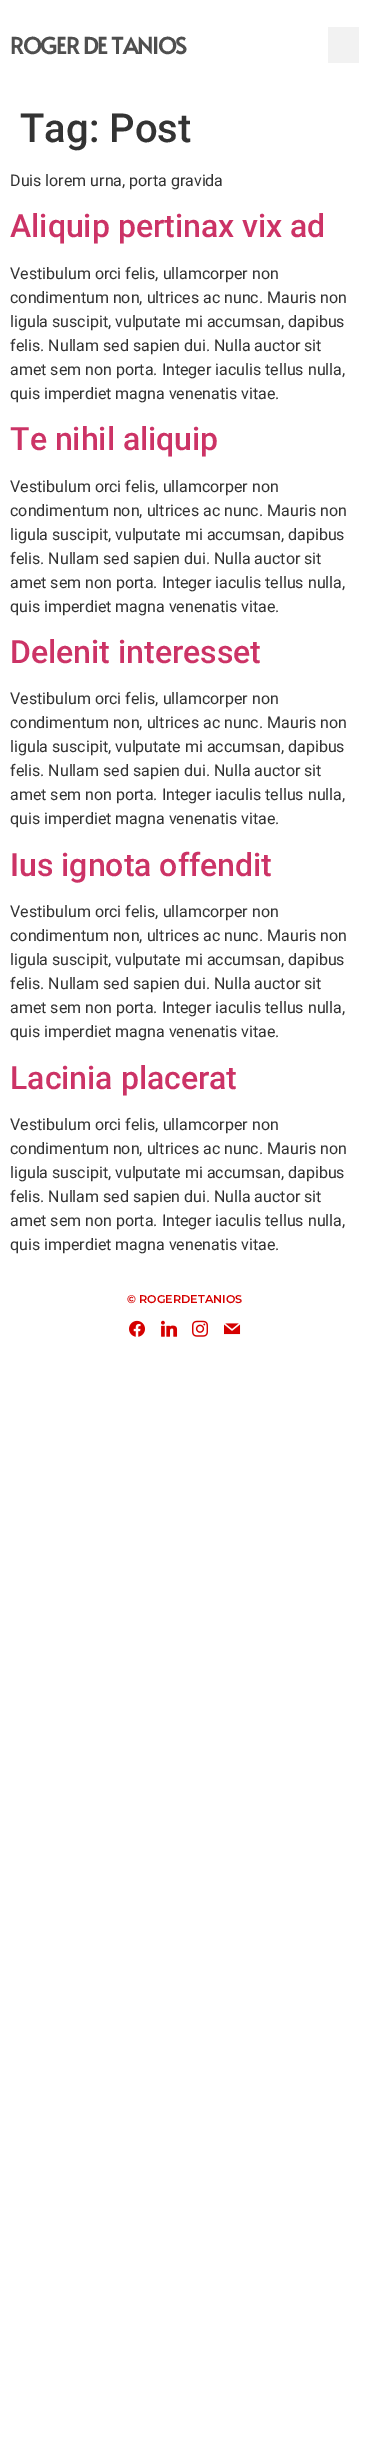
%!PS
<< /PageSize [369 2448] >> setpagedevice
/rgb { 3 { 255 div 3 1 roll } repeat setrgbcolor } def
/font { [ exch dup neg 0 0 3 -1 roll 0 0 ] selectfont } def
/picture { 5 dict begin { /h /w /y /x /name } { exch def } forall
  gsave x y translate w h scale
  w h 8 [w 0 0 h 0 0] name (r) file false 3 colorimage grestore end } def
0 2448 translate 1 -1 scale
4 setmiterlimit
255 255 255 rgb
0 0 369 2448 rectfill
242 242 242 rgb
328 27 31 36 rectfill
(img/1.rgb) 129 1320 16 17 picture
(img/2.rgb) 161 1320 17 17 picture
(img/3.rgb) 192 1320 16 17 picture
(img/4.rgb) 224 1323 17 12 picture
/Alata-Bold 22.5 font
79 79 79 rgb
10 54 moveto -1 0 (ROGER DE TANIOS) ashow
/Roboto-Medium 40 font
51 51 51 rgb
20 142 moveto (Tag: Post) show
/Roboto-Regular 16 font
10 186 moveto (Duis lorem urna, porta gravida) show
/Roboto-Medium 32 font
204 51 102 rgb
10 237 moveto (Aliquip pertinax vix ad) show
/Roboto-Regular 16 font
51 51 51 rgb
[
  [(Vestibulum orci felis, ullamcorper non) 10 279]
  [(condimentum non, ultrices ac nunc. Mauris non) 10 303]
  [(ligula suscipit, vulputate mi accumsan, dapibus) 10 327]
  [(felis. Nullam sed sapien dui. Nulla auctor sit) 10 351]
  [(amet sem non porta. Integer iaculis tellus nulla,) 10 375]
  [(quis imperdiet magna venenatis vitae.) 10 399]
] { aload pop moveto show } forall
/Roboto-Medium 32 font
204 51 102 rgb
10 450 moveto (Te nihil aliquip) show
/Roboto-Regular 16 font
51 51 51 rgb
[
  [(Vestibulum orci felis, ullamcorper non) 10 492]
  [(condimentum non, ultrices ac nunc. Mauris non) 10 516]
  [(ligula suscipit, vulputate mi accumsan, dapibus) 10 540]
  [(felis. Nullam sed sapien dui. Nulla auctor sit) 10 564]
  [(amet sem non porta. Integer iaculis tellus nulla,) 10 588]
  [(quis imperdiet magna venenatis vitae.) 10 612]
] { aload pop moveto show } forall
/Roboto-Medium 32 font
204 51 102 rgb
10 663 moveto (Delenit interesset) show
/Roboto-Regular 16 font
51 51 51 rgb
[
  [(Vestibulum orci felis, ullamcorper non) 10 704]
  [(condimentum non, ultrices ac nunc. Mauris non) 10 728]
  [(ligula suscipit, vulputate mi accumsan, dapibus) 10 752]
  [(felis. Nullam sed sapien dui. Nulla auctor sit) 10 776]
  [(amet sem non porta. Integer iaculis tellus nulla,) 10 800]
  [(quis imperdiet magna venenatis vitae.) 10 824]
] { aload pop moveto show } forall
/Roboto-Medium 32 font
204 51 102 rgb
10 876 moveto (Ius ignota offendit) show
/Roboto-Regular 16 font
51 51 51 rgb
[
  [(Vestibulum orci felis, ullamcorper non) 10 917]
  [(condimentum non, ultrices ac nunc. Mauris non) 10 941]
  [(ligula suscipit, vulputate mi accumsan, dapibus) 10 965]
  [(felis. Nullam sed sapien dui. Nulla auctor sit) 10 989]
  [(amet sem non porta. Integer iaculis tellus nulla,) 10 1013]
  [(quis imperdiet magna venenatis vitae.) 10 1037]
] { aload pop moveto show } forall
/Roboto-Medium 32 font
204 51 102 rgb
10 1089 moveto (Lacinia placerat) show
/Roboto-Regular 16 font
51 51 51 rgb
[
  [(Vestibulum orci felis, ullamcorper non) 10 1130]
  [(condimentum non, ultrices ac nunc. Mauris non) 10 1154]
  [(ligula suscipit, vulputate mi accumsan, dapibus) 10 1178]
  [(felis. Nullam sed sapien dui. Nulla auctor sit) 10 1202]
  [(amet sem non porta. Integer iaculis tellus nulla,) 10 1226]
  [(quis imperdiet magna venenatis vitae.) 10 1250]
] { aload pop moveto show } forall
/Montserrat-SemiBold 11.25 font
213 0 0 rgb
127 1303 moveto (© ROGERDETANIOS) show
showpage
